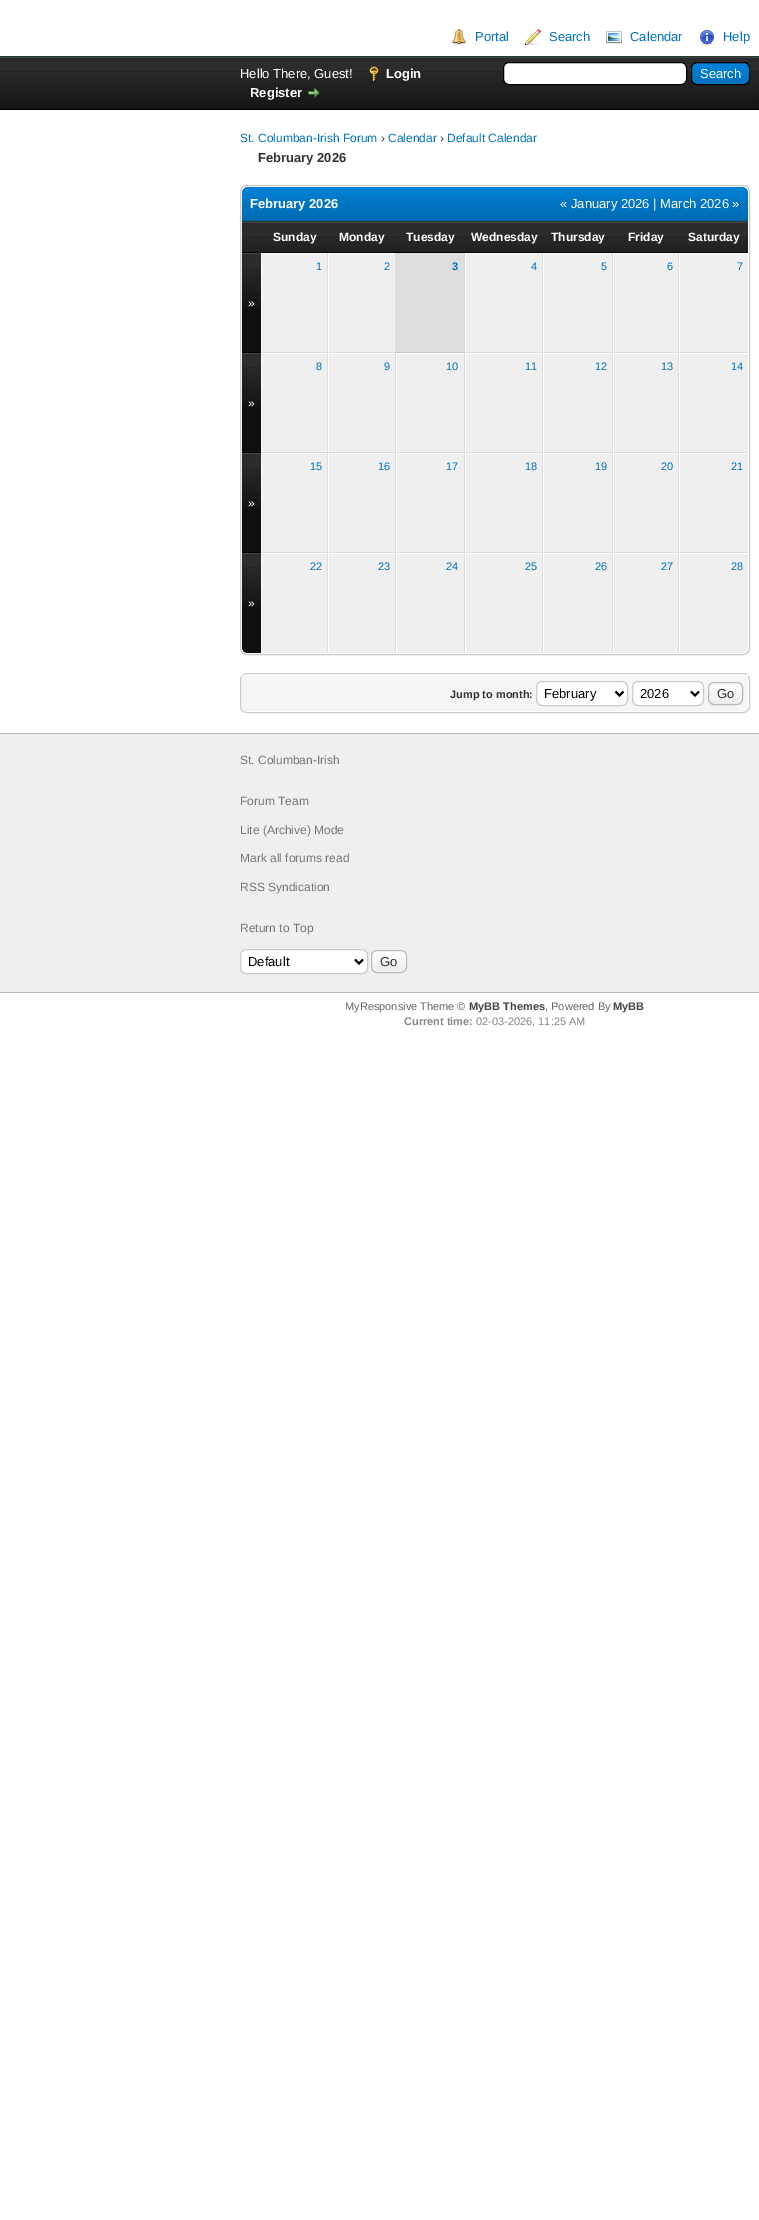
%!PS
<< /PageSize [759 2220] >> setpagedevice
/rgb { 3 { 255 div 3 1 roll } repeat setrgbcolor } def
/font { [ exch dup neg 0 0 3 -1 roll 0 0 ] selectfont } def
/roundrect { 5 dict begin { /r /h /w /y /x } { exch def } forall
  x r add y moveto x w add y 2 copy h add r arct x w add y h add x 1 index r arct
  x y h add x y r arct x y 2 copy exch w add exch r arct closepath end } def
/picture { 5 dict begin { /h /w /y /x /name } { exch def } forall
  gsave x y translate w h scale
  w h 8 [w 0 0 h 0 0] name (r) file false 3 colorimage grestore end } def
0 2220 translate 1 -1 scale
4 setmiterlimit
255 255 255 rgb
0 0 759 2220 rectfill
38 60 48 rgb
0 56 759 1 rectfill
(img/1.rgb) 452 29 14 16 picture
(img/2.rgb) 525 29 16 16 picture
(img/3.rgb) 606 31 16 13 picture
(img/4.rgb) 700 30 14 15 picture
(img/5.rgb) 0 58 759 51 picture
68 68 68 rgb
0 57 759 1 rectfill
0 0 0 rgb
0 109 759 1 rectfill
(img/6.rgb) 369 66 10 15 picture
255 255 255 rgb
503.5 62.5 183 22 5.5 roundrect gsave fill grestore
0 0 0 rgb
stroke
(img/7.rgb) 691 63 59 22 picture
691.5 62.5 58 22 5.5 roundrect stroke
(img/8.rgb) 308 88 12 10 picture
204 204 204 rgb
240.5 185.5 509 469 6.5 roundrect stroke
(img/9.rgb) 242 187 506 34 picture
38 60 48 rgb
242 221 506 1 rectfill
(img/10.rgb) 242 223 19 29 picture
68 68 68 rgb
242 222 506 1 rectfill
0 0 0 rgb
242 252 506 1 rectfill
(img/11.rgb) 261 223 67 29 picture
(img/12.rgb) 328 223 68 29 picture
(img/13.rgb) 396 223 69 29 picture
(img/14.rgb) 465 223 78 29 picture
(img/15.rgb) 543 223 70 29 picture
(img/16.rgb) 613 223 66 29 picture
(img/13.rgb) 679 223 69 29 picture
[
  [262 254 65 98 239 239 239]
  [327 253 1 400 221 221 221]
  [261 352 67 1 221 221 221]
  [261 352 1 1 255 255 255]
  [329 254 66 98 239 239 239]
  [395 253 1 400 221 221 221]
  [328 352 68 1 221 221 221]
  [328 352 1 1 255 255 255]
  [396 253 69 99 221 221 221]
  [396 352 69 1 197 197 197]
  [466 254 76 98 239 239 239]
  [542 253 1 400 221 221 221]
  [465 352 78 1 221 221 221]
  [465 352 1 1 255 255 255]
  [544 254 68 98 239 239 239]
  [612 253 1 400 221 221 221]
  [543 352 70 1 221 221 221]
  [543 352 1 1 255 255 255]
  [614 254 64 98 239 239 239]
  [678 253 1 400 221 221 221]
  [613 352 135 1 221 221 221]
  [613 352 1 1 255 255 255]
  [680 254 68 98 239 239 239]
  [679 352 1 1 255 255 255]
  [242 309 19 43 15 15 15]
] { aload pop rgb rectfill } forall
(img/17.rgb) 242 254 19 55 picture
[
  [242 253 19 1 68 68 68]
  [242 352 19 1 0 0 0]
  [262 354 65 98 239 239 239]
  [261 452 135 1 221 221 221]
  [261 452 1 1 255 255 255]
  [329 354 66 98 239 239 239]
  [328 452 1 1 255 255 255]
  [397 354 67 98 239 239 239]
  [464 353 1 300 221 221 221]
  [396 452 352 1 221 221 221]
  [396 452 1 1 255 255 255]
  [466 354 76 98 239 239 239]
  [465 452 1 1 255 255 255]
  [544 354 68 98 239 239 239]
  [543 452 1 1 255 255 255]
  [614 354 64 98 239 239 239]
  [613 452 1 1 255 255 255]
  [680 354 68 98 239 239 239]
  [679 452 1 1 255 255 255]
  [242 409 19 43 15 15 15]
] { aload pop rgb rectfill } forall
(img/17.rgb) 242 354 19 55 picture
[
  [242 353 19 1 68 68 68]
  [242 452 19 1 0 0 0]
  [262 454 65 98 239 239 239]
  [261 552 487 1 221 221 221]
  [261 552 1 1 255 255 255]
  [329 454 66 98 239 239 239]
  [328 552 1 1 255 255 255]
  [397 454 67 98 239 239 239]
  [396 552 1 1 255 255 255]
  [466 454 76 98 239 239 239]
  [465 552 1 1 255 255 255]
  [544 454 68 98 239 239 239]
  [543 552 1 1 255 255 255]
  [614 454 64 98 239 239 239]
  [613 552 1 1 255 255 255]
  [680 454 68 98 239 239 239]
  [679 552 1 1 255 255 255]
  [242 509 19 43 15 15 15]
] { aload pop rgb rectfill } forall
(img/17.rgb) 242 454 19 55 picture
[
  [242 453 19 1 68 68 68]
  [242 552 19 1 0 0 0]
  [262 554 65 99 239 239 239]
  [329 554 66 99 239 239 239]
  [397 554 67 99 239 239 239]
  [466 554 76 99 239 239 239]
  [544 554 68 99 239 239 239]
  [614 554 64 99 239 239 239]
] { aload pop rgb rectfill } forall
679 553 moveto 748 553 lineto 748 647 lineto 748 650.5 745.5 653 742 653 curveto 679 653 lineto closepath fill
255 255 255 rgb
679 553 69 1 rectfill
679 553 1 100 rectfill
15 15 15 rgb
242 553 moveto 261 553 lineto 261 653 lineto 248 653 lineto 244.5 653 242 650.5 242 647 curveto closepath fill
(img/17.rgb) 242 554 19 55 picture
68 68 68 rgb
242 553 19 1 rectfill
204 204 204 rgb
240.5 673.5 509 39 6.5 roundrect stroke
245 245 245 rgb
242 675 moveto 748 675 lineto 748 705 lineto 748 708.5 745.5 711 742 711 curveto 248 711 lineto 244.5 711 242 708.5 242 705 curveto closepath fill
255 255 255 rgb
242 675 506 1 rectfill
536.5 681.5 91 24 5.5 roundrect gsave fill grestore
204 204 204 rgb
stroke
0 0 0 rgb
2 setlinewidth
615.5 691.5 moveto 619.5 695.5 lineto 623.5 691.5 lineto stroke
255 255 255 rgb
632.5 681.5 71 24 5.5 roundrect gsave fill grestore
204 204 204 rgb
1 setlinewidth
stroke
0 0 0 rgb
2 setlinewidth
691 691.5 moveto 695 695.5 lineto 699 691.5 lineto stroke
(img/18.rgb) 708 683 35 21 picture
187 187 187 rgb
1 setlinewidth
708.5 682.5 34 22 5.5 roundrect stroke
[
  [0 734 759 258 239 239 239]
  [0 733 759 1 187 187 187]
  [0 992 759 1 187 187 187]
] { aload pop rgb rectfill } forall
255 255 255 rgb
240.5 949.5 127 24 5.5 roundrect gsave fill grestore
204 204 204 rgb
stroke
0 0 0 rgb
2 setlinewidth
355 959.5 moveto 359 963.5 lineto 363 959.5 lineto stroke
(img/19.rgb) 371 951 36 15 picture
187 187 187 rgb
1 setlinewidth
371.5 950.5 35 22 5.5 roundrect stroke
/LiberationSans-Regular 13 font
0 114 188 rgb
[
  [(Portal) 475 41]
  [(Search) 549 41]
  [(Calendar) 630 41]
  [(Help) 723 41]
] { aload pop moveto show } forall
255 255 255 rgb
240 78 moveto (Hello There, Guest!) show
/LiberationSans-Bold 13 font
386 78 moveto (Login) show
/LiberationSans-Regular 13 font
700 78 moveto (Search) show
/LiberationSans-Bold 13 font
250 97 moveto (Register) show
/LiberationSans-Regular 12 font
0 114 188 rgb
240 142 moveto (St. Columban-Irish Forum) show
51 51 51 rgb
381 142 moveto (›) show
0 114 188 rgb
388 142 moveto (Calendar) show
51 51 51 rgb
440 142 moveto (›) show
0 114 188 rgb
447 142 moveto (Default Calendar) show
/LiberationSans-Bold 13 font
51 51 51 rgb
258 162 moveto (February 2026) show
255 255 255 rgb
250 208 moveto (February 2026) show
/LiberationSans-Regular 13 font
560 208 moveto (« January 2026 | March 2026 ») show
/LiberationSans-Bold 12 font
[
  [(Sunday) 273 241]
  [(Monday) 339 241]
  [(Tuesday) 406 241]
  [(Wednesday) 471 241]
  [(Thursday) 551 241]
  [(Friday) 628 241]
  [(Saturday) 688 241]
] { aload pop moveto show } forall
/LiberationSans-Regular 11 font
0 114 188 rgb
316 270 moveto (1) show
384 270 moveto (2) show
/LiberationSans-Bold 11 font
452 270 moveto (3) show
/LiberationSans-Regular 11 font
[
  [(4) 531 270]
  [(5) 601 270]
  [(6) 667 270]
  [(7) 737 270]
] { aload pop moveto show } forall
/LiberationSans-Regular 12 font
255 255 255 rgb
248 307 moveto (») show
/LiberationSans-Regular 11 font
0 114 188 rgb
[
  [(8) 316 370]
  [(9) 384 370]
  [(10) 446 370]
  [(11) 525 370]
  [(12) 595 370]
  [(13) 661 370]
  [(14) 731 370]
] { aload pop moveto show } forall
/LiberationSans-Regular 12 font
255 255 255 rgb
248 407 moveto (») show
/LiberationSans-Regular 11 font
0 114 188 rgb
[
  [(15) 310 470]
  [(16) 378 470]
  [(17) 446 470]
  [(18) 525 470]
  [(19) 595 470]
  [(20) 661 470]
  [(21) 731 470]
] { aload pop moveto show } forall
/LiberationSans-Regular 12 font
255 255 255 rgb
248 507 moveto (») show
/LiberationSans-Regular 11 font
0 114 188 rgb
[
  [(22) 310 570]
  [(23) 378 570]
  [(24) 446 570]
  [(25) 525 570]
  [(26) 595 570]
  [(27) 661 570]
  [(28) 731 570]
] { aload pop moveto show } forall
/LiberationSans-Regular 12 font
255 255 255 rgb
248 607 moveto (») show
/LiberationSans-Bold 11 font
51 51 51 rgb
450 698 moveto (Jump to month:) show
/LiberationSans-Regular 13 font
0 0 0 rgb
544 698 moveto (February) show
640 698 moveto (2026) show
51 51 51 rgb
717 698 moveto (Go) show
/LiberationSans-Regular 12 font
119 119 119 rgb
[
  [(St. Columban-Irish) 240 764]
  [(Forum Team) 240 805]
  [(Lite \(Archive\) Mode) 240 834]
  [(Mark all forums read) 240 862]
  [(RSS Syndication) 240 891]
  [(Return to Top) 240 932]
] { aload pop moveto show } forall
/LiberationSans-Regular 13 font
0 0 0 rgb
248 966 moveto (Default) show
51 51 51 rgb
380 966 moveto (Go) show
/LiberationSans-Regular 11 font
102 102 102 rgb
345 1010 moveto (MyResponsive Theme ©) show
/LiberationSans-Bold 11 font
68 68 68 rgb
469 1010 moveto (MyBB Themes) show
/LiberationSans-Regular 11 font
102 102 102 rgb
545 1010 moveto (, Powered By) show
/LiberationSans-Bold 11 font
68 68 68 rgb
613 1010 moveto (MyBB) show
136 136 136 rgb
404 1025 moveto (Current time:) show
/LiberationSans-Regular 11 font
476 1025 moveto (02-03-2026, 11:25 AM) show
showpage
